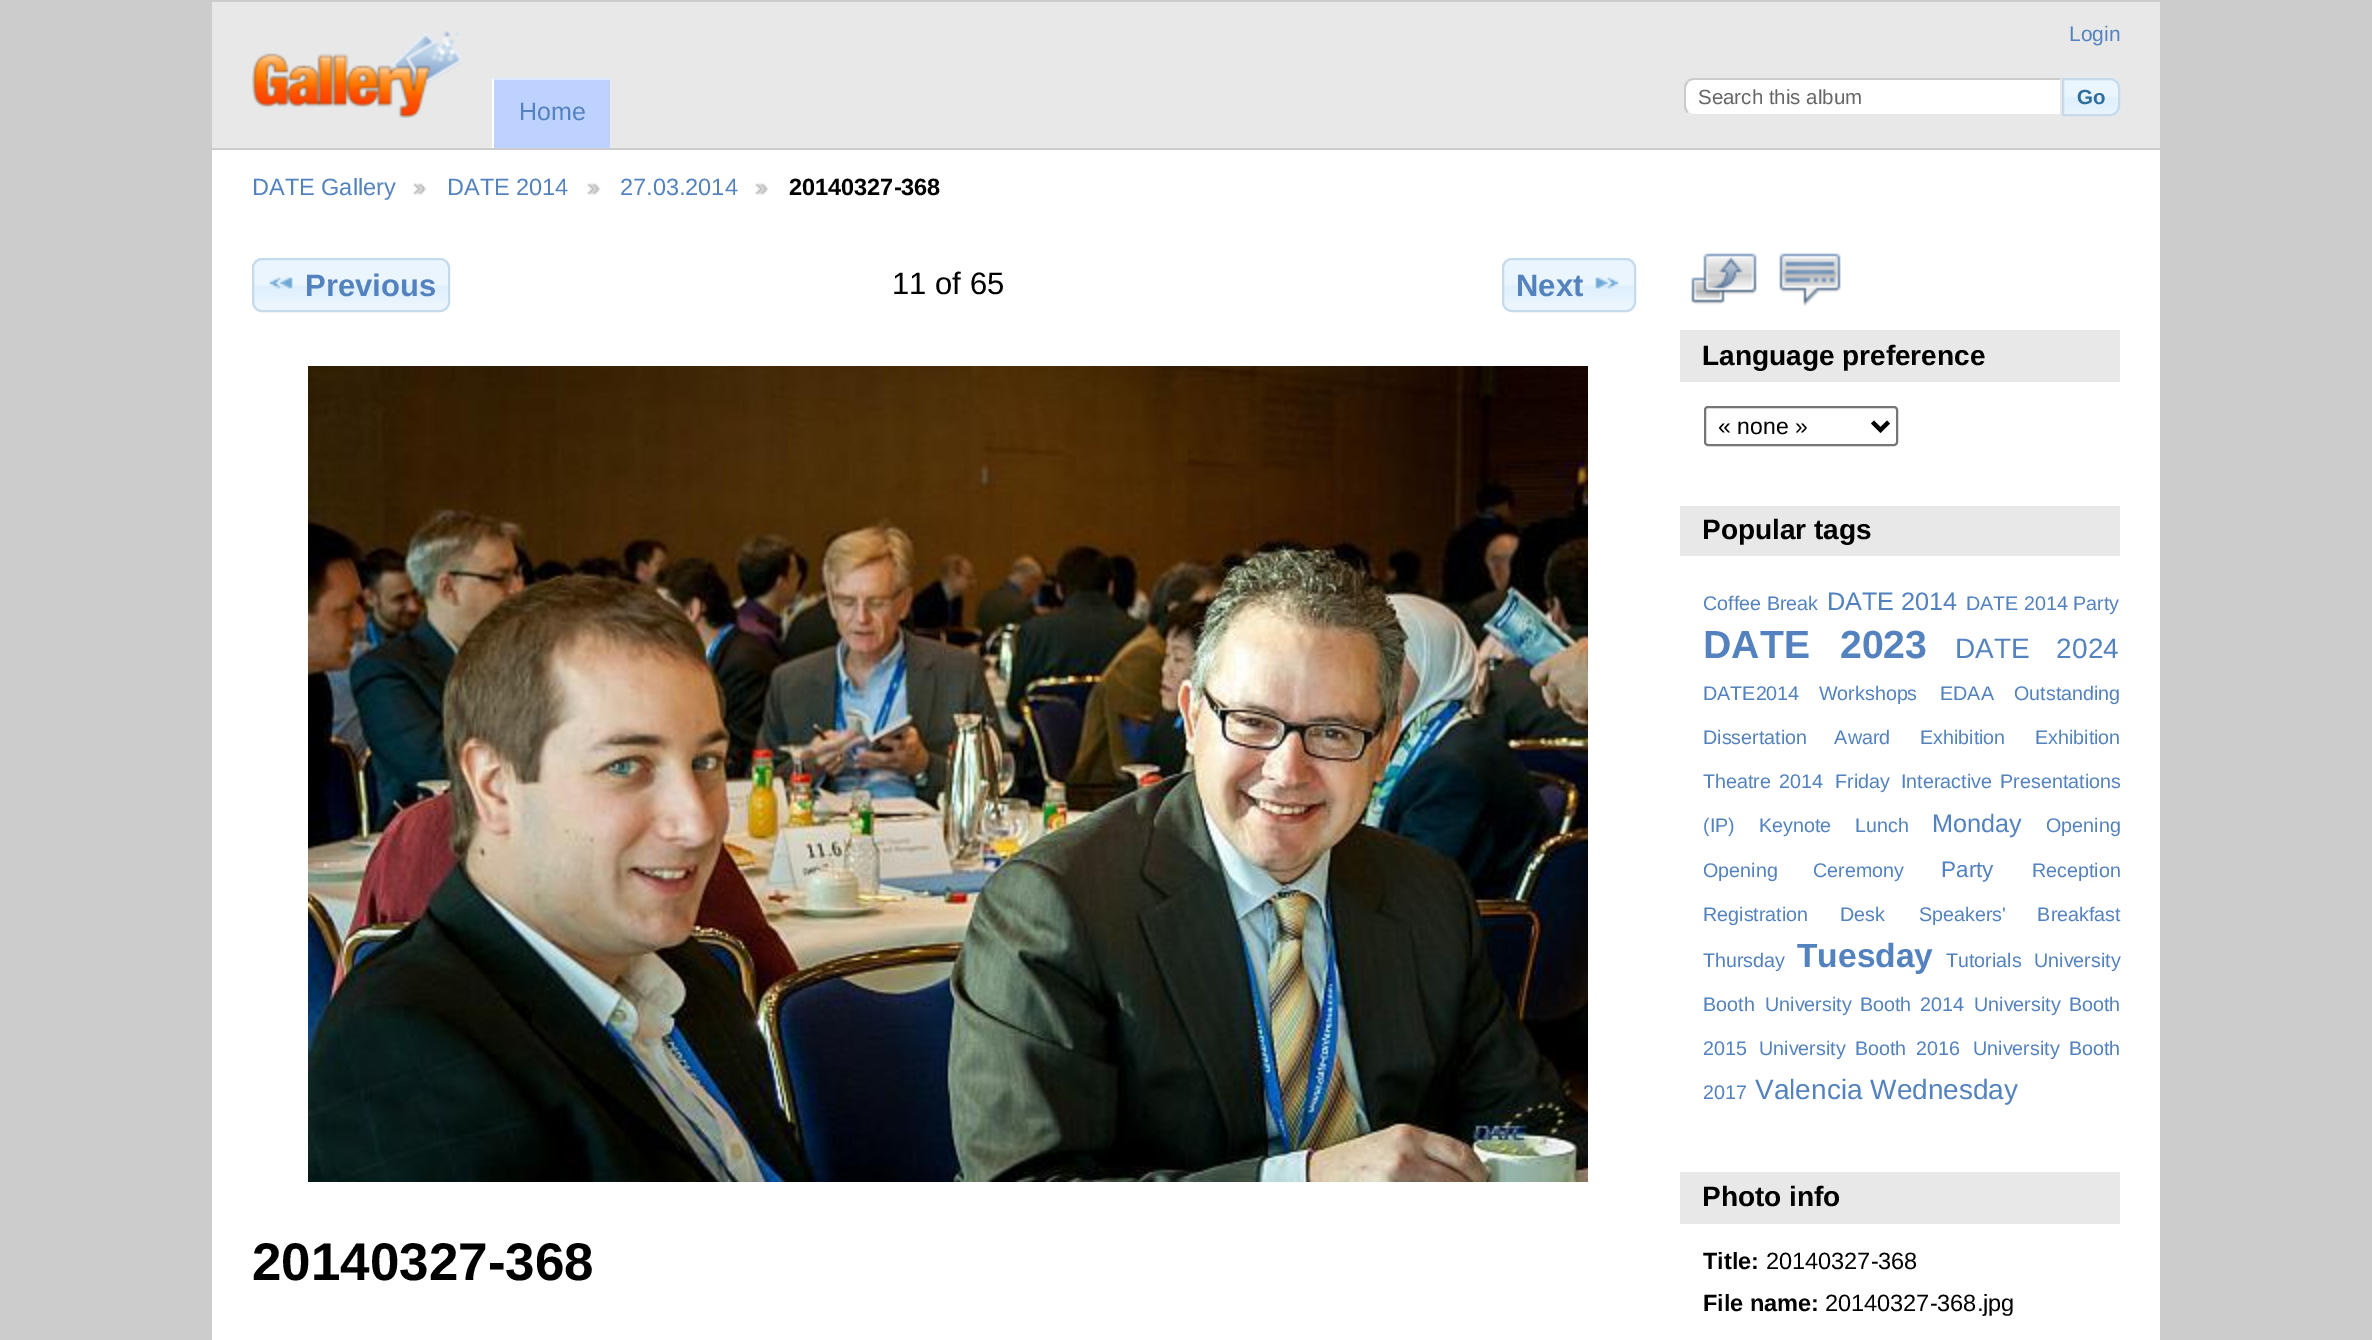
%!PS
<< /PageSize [2372 1340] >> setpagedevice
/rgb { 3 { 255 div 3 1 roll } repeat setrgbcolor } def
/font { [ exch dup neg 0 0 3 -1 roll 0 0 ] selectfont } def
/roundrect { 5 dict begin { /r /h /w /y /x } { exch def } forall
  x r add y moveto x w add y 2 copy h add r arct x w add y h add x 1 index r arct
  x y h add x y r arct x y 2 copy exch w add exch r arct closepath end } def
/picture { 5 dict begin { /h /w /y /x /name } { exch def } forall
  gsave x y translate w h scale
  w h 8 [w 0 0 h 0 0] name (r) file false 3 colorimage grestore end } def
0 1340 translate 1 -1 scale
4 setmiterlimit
204 204 204 rgb
0 0 2372 1340 rectfill
255 255 255 rgb
212 150 1948 1190 rectfill
232 232 232 rgb
212 2 1948 146 rectfill
(img/1.rgb) 252 31 211 87 picture
255 255 255 rgb
1694 78 moveto 2062 78 lineto 2062 116 lineto 1694 116 lineto 1688.5 116 1684 111.5 1684 106 curveto 1684 88 lineto 1684 82.5 1688.5 78 1694 78 curveto closepath fill
204 204 204 rgb
1694 78 moveto 1691 78 1688 79 1687 81 curveto 1688 82 lineto 1690 81 1692 80 1694 80 curveto 2060 80 lineto 2062 78 lineto closepath fill
232 232 232 rgb
2062 78 moveto 2060 80 lineto 2060 114 lineto 2062 116 lineto closepath fill
2062 116 moveto 2060 114 lineto 1694 114 lineto 1692 114 1690 113 1688 112 curveto 1687 113 lineto 1688 115 1691 116 1694 116 curveto closepath fill
204 204 204 rgb
1684 88 moveto 1684 106 lineto 1684 109 1685 111.5 1687 113 curveto 1688.5 111.5 lineto 1687 110 1686 108 1686 106 curveto 1686 88 lineto 1686 86 1687 84 1688.5 82.5 curveto 1687 81 lineto 1685 82.5 1684 85 1684 88 curveto closepath fill
(img/2.rgb) 2064 78 56 38 picture
197 219 236 rgb
2 setlinewidth
2063 79 moveto 2110 79 lineto 2115 79 2119 83 2119 88 curveto 2119 106 lineto 2119 111 2115 115 2110 115 curveto 2063 115 lineto closepath stroke
189 210 255 rgb
492 78 118 70 rectfill
222 233 255 rgb
492 78 moveto 610 78 lineto 610 80 lineto 494 80 lineto closepath fill
255 255 255 rgb
492 148 moveto 492 78 lineto 494 80 lineto 494 148 lineto closepath fill
(img/3.rgb) 413 183 14 12 picture
(img/3.rgb) 587 183 14 12 picture
(img/3.rgb) 755 183 14 12 picture
(img/4.rgb) 252 258 198 54 picture
197 219 236 rgb
253 259 196 52 9 roundrect stroke
(img/5.rgb) 269 277 24 12 picture
(img/6.rgb) 1502 258 134 54 picture
1503 259 132 52 9 roundrect stroke
(img/7.rgb) 1595 277 24 12 picture
(img/8.rgb) 308 366 1280 816 picture
(img/9.rgb) 1691 253 66 52 picture
(img/10.rgb) 1779 253 62 53 picture
232 232 232 rgb
1680 330 440 52 rectfill
118 118 118 rgb
1705 407 192 38 3 roundrect stroke
0 0 0 rgb
4 setlinewidth
1872.5 422 moveto 1880.5 430 lineto 1888.5 422 lineto stroke
232 232 232 rgb
1680 506 440 50 rectfill
1680 1172 440 52 rectfill
/LiberationSans-Regular 21 font
83 130 191 rgb
2069 41 moveto (Login) show
/LiberationSans-Regular 20.5 font
102 102 102 rgb
1698 104 moveto (Search this album) show
/LiberationSans-Bold 20.5 font
46 110 158 rgb
2077 104 moveto (Go) show
/LiberationSans-Regular 25 font
83 130 191 rgb
519 120 moveto (Home) show
/LiberationSans-Regular 23.5 font
[
  [(DATE Gallery) 252 195]
  [(DATE 2014) 447 195]
  [(27.03.2014) 620 195]
] { aload pop moveto show } forall
/LiberationSans-Bold 23.5 font
0 0 0 rgb
789 195 moveto (20140327-368) show
/LiberationSans-Bold 31 font
83 130 191 rgb
305 296 moveto (Previous) show
/LiberationSans-Regular 31 font
0 0 0 rgb
892 294 moveto (11 of 65) show
/LiberationSans-Bold 31 font
83 130 191 rgb
1516 296 moveto (Next) show
/LiberationSans-Bold 53 font
0 0 0 rgb
252 1280 moveto (20140327-368) show
/LiberationSans-Bold 28 font
1702 365 moveto (Language preference) show
/LiberationSans-Regular 23 font
1718 434 moveto (« none ») show
/LiberationSans-Bold 28 font
1702 539 moveto (Popular tags) show
/LiberationSans-Regular 19.7 font
83 130 191 rgb
1703 610 moveto (Coffee Break) show
/LiberationSans-Regular 25.25 font
1827 610 moveto (DATE 2014) show
/LiberationSans-Regular 19.7 font
1966 610 moveto (DATE 2014 Party) show
/LiberationSans-Bold 39.25 font
1703 658 moveto 19 0 32 (DATE 2023) widthshow
/LiberationSans-Regular 28 font
1955 658 moveto 19 0 32 (DATE 2024) widthshow
/LiberationSans-Regular 19.7 font
1703 700 moveto 14 0 32 (DATE2014 Workshops) widthshow
1940 700 moveto 15 0 32 (EDAA Outstanding) widthshow
1703 744 moveto 22 0 32 (Dissertation Award) widthshow
1920 744 moveto (Exhibition) show
2035 744 moveto (Exhibition) show
1703 788 moveto 3 0 32 (Theatre 2014) widthshow
1835 788 moveto (Friday) show
1901 788 moveto 3 0 32 (Interactive Presentations) widthshow
[
  [(\(IP\)) 1703 832]
  [(Keynote) 1759 832]
  [(Lunch) 1855 832]
] { aload pop moveto show } forall
/LiberationSans-Regular 25.25 font
1932 832 moveto (Monday) show
/LiberationSans-Regular 19.7 font
2046 832 moveto (Opening) show
1703 877 moveto 30 0 32 (Opening Ceremony) widthshow
/LiberationSans-Regular 22.5 font
1941 877 moveto (Party) show
/LiberationSans-Regular 19.7 font
2032 877 moveto (Reception) show
1703 921 moveto 26 0 32 (Registration Desk) widthshow
1919 921 moveto 26 0 32 (Speakers' Breakfast) widthshow
1703 967 moveto (Thursday) show
/LiberationSans-Bold 33.5 font
1797 967 moveto (Tuesday) show
/LiberationSans-Regular 19.7 font
[
  [(Tutorials) 1946 967]
  [(University) 2034 967]
  [(Booth) 1703 1011]
] { aload pop moveto show } forall
1765 1011 moveto 3 0 32 (University Booth 2014) widthshow
1974 1011 moveto 3 0 32 (University Booth) widthshow
1703 1055 moveto (2015) show
1759 1055 moveto 4 0 32 (University Booth 2016) widthshow
1973 1055 moveto 4 0 32 (University Booth) widthshow
1703 1099 moveto (2017) show
/LiberationSans-Regular 28 font
1755 1099 moveto (Valencia Wednesday) show
/LiberationSans-Bold 28 font
0 0 0 rgb
1702 1206 moveto (Photo info) show
/LiberationSans-Bold 23.5 font
1703 1269 moveto (Title:) show
/LiberationSans-Regular 23.5 font
1766 1269 moveto (20140327-368) show
/LiberationSans-Bold 23.5 font
1703 1311 moveto (File name:) show
/LiberationSans-Regular 23.5 font
1825 1311 moveto (20140327-368.jpg) show
showpage
